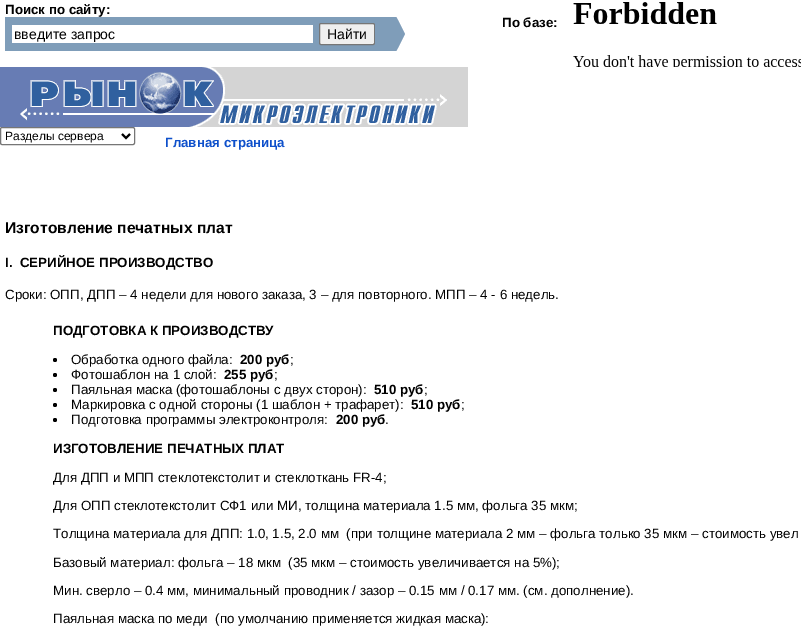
%!PS
<< /PageSize [801 639] >> setpagedevice
/rgb { 3 { 255 div 3 1 roll } repeat setrgbcolor } def
/font { [ exch dup neg 0 0 3 -1 roll 0 0 ] selectfont } def
/circle { newpath 0 360 arc closepath } def
/roundrect { 5 dict begin { /r /h /w /y /x } { exch def } forall
  x r add y moveto x w add y 2 copy h add r arct x w add y h add x 1 index r arct
  x y h add x y r arct x y 2 copy exch w add exch r arct closepath end } def
/picture { 5 dict begin { /h /w /y /x /name } { exch def } forall
  gsave x y translate w h scale
  w h 8 [w 0 0 h 0 0] name (r) file false 3 colorimage grestore end } def
0 639 translate 1 -1 scale
4 setmiterlimit
255 255 255 rgb
0 0 801 639 rectfill
127 157 185 rgb
5 17 370 34 rectfill
255 255 255 rgb
12 25 301 18 rectfill
239 239 239 rgb
319.5 23.5 55 21 1.5 roundrect gsave fill grestore
118 118 118 rgb
stroke
gsave
375 17 30 34 rectclip
127 157 185 rgb
375 93 moveto 375 -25 lineto 405 34 lineto closepath fill
grestore
(img/1.rgb) 573 2 228 65 picture
(img/2.rgb) 0 67 468 60 picture
0.5 127.5 134 17 1.5 roundrect stroke
0 0 0 rgb
2 setlinewidth
122 134 moveto 126 138 lineto 130 134 lineto stroke
55 360 2 circle fill
55 375 2 circle fill
55 390 2 circle fill
55 405 2 circle fill
55 420 2 circle fill
/LiberationSans-Bold 13.33 font
5 14 moveto (Поиск по сайту:) show
/LiberationSans-Regular 14 font
14 39 moveto (введите запрос) show
327 39 moveto (Найти) show
/LiberationSans-Bold 13.33 font
502 27 moveto (По базе:) show
/LiberationSans-Regular 12 font
5 140 moveto (Разделы сервера) show
/LiberationSans-Bold 13.33 font
14 80 203 rgb
165 147 moveto (Главная страница) show
/LiberationSans-Bold 15.6 font
0 0 0 rgb
5 233 moveto (Изготовление печатных плат) show
/LiberationSans-Bold 13.33 font
5 267 moveto (I.  СЕРИЙНОЕ ПРОИЗВОДСТВО) show
/LiberationSans-Regular 13.33 font
5 299 moveto (Сроки: ОПП, ДПП – 4 недели для нового заказа, 3 – для повторного. МПП – 4 - 6 недель.) show
/LiberationSans-Bold 13.33 font
53 335 moveto (ПОДГОТОВКА К ПРОИЗВОДСТВУ) show
/LiberationSans-Regular 13.33 font
71 364 moveto (Обработка одного файла:) show
/LiberationSans-Bold 13.33 font
240 364 moveto (200 руб) show
/LiberationSans-Regular 13.33 font
290 364 moveto (;) show
71 379 moveto (Фотошаблон на 1 слой:) show
/LiberationSans-Bold 13.33 font
224 379 moveto (255 руб) show
/LiberationSans-Regular 13.33 font
274 379 moveto (;) show
71 394 moveto (Паяльная маска \(фотошаблоны с двух сторон\):) show
/LiberationSans-Bold 13.33 font
374 394 moveto (510 руб) show
/LiberationSans-Regular 13.33 font
424 394 moveto (;) show
71 409 moveto (Маркировка с одной стороны \(1 шаблон + трафарет\):) show
/LiberationSans-Bold 13.33 font
411 409 moveto (510 руб) show
/LiberationSans-Regular 13.33 font
461 409 moveto (;) show
71 424 moveto (Подготовка программы электроконтроля:) show
/LiberationSans-Bold 13.33 font
336 424 moveto (200 руб) show
/LiberationSans-Regular 13.33 font
385 424 moveto (.) show
/LiberationSans-Bold 13.33 font
53 453 moveto (ИЗГОТОВЛЕНИЕ ПЕЧАТНЫХ ПЛАТ) show
/LiberationSans-Regular 13.33 font
[
  [(Для ДПП и МПП стеклотекстолит и стеклоткань FR-4;) 53 482]
  [(Для ОПП стеклотекстолит СФ1 или МИ, толщина материала 1.5 мм, фольга 35 мкм;) 53 510]
  [(Толщина материала для ДПП: 1.0, 1.5, 2.0 мм  \(при толщине материала 2 мм – фольга только 35 мкм – стоимость увел) 53 538]
  [(Базовый материал: фольга – 18 мкм  \(35 мкм – стоимость увеличивается на 5%\);) 53 567]
  [(Мин. сверло – 0.4 мм, минимальный проводник / зазор – 0.15 мм / 0.17 мм. \(см. дополнение\).) 53 595]
  [(Паяльная маска по меди  \(по умолчанию применяется жидкая маска\):) 53 623]
] { aload pop moveto show } forall
showpage
